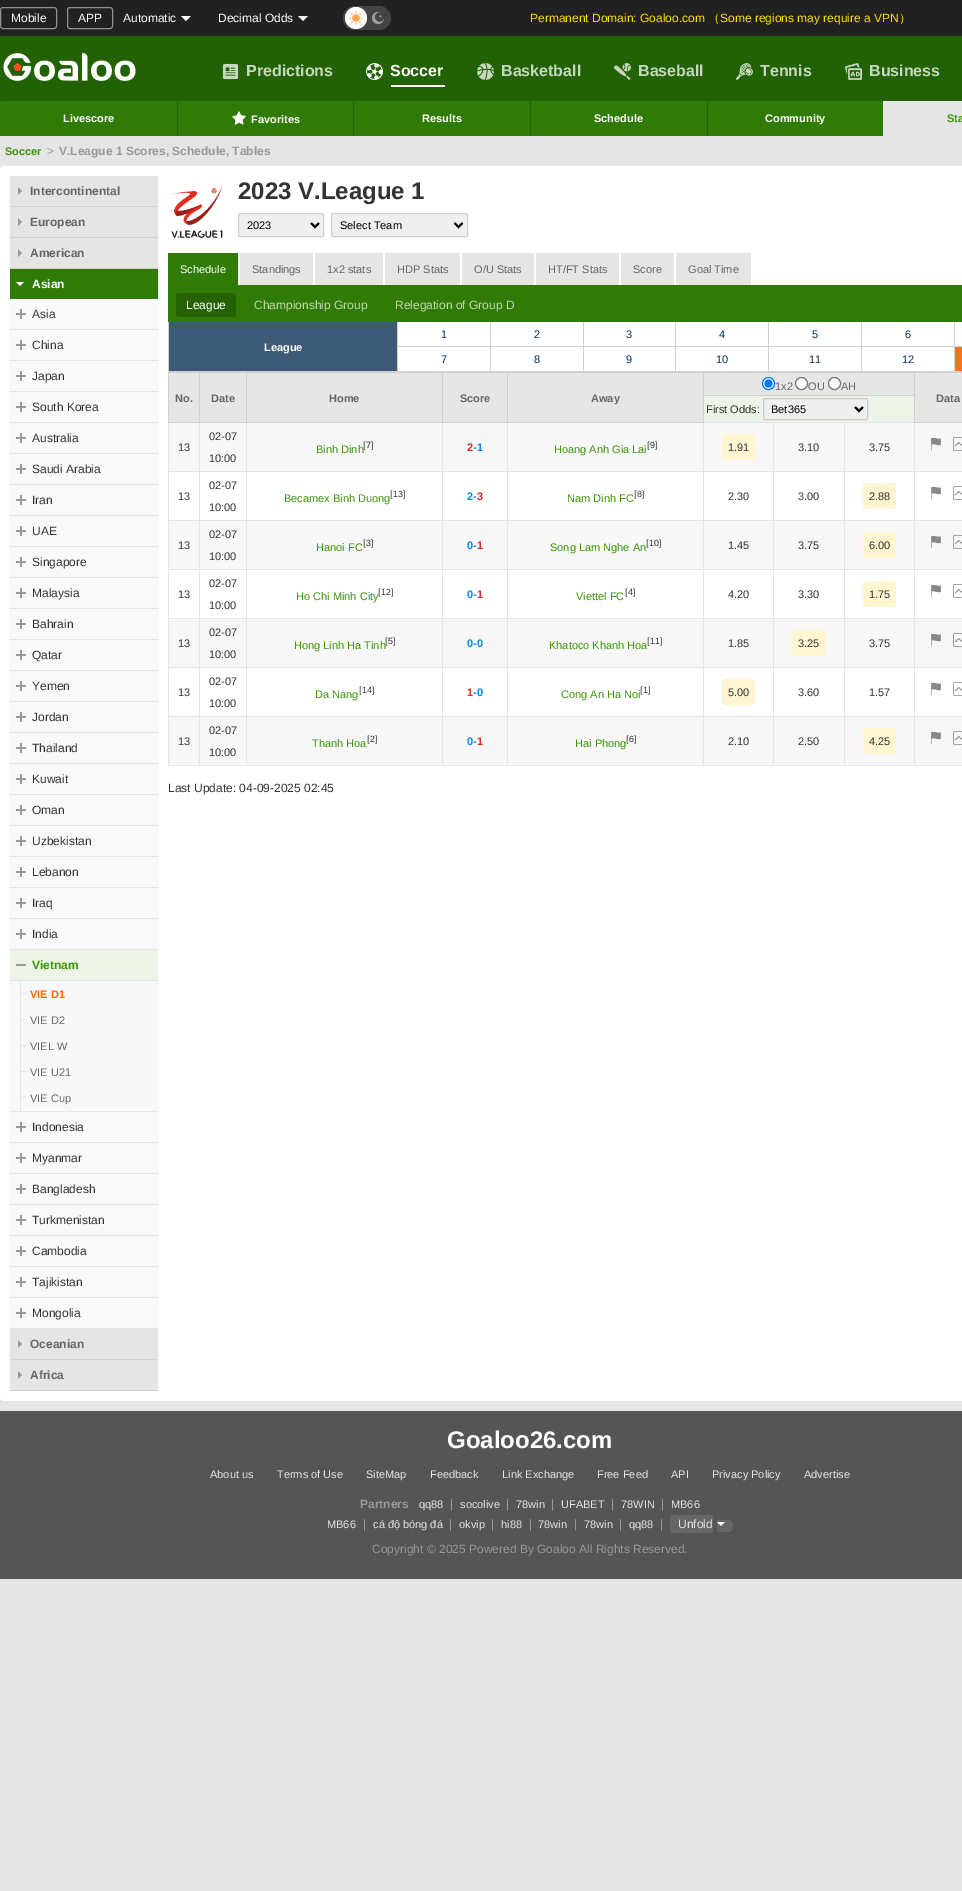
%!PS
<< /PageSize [962 1891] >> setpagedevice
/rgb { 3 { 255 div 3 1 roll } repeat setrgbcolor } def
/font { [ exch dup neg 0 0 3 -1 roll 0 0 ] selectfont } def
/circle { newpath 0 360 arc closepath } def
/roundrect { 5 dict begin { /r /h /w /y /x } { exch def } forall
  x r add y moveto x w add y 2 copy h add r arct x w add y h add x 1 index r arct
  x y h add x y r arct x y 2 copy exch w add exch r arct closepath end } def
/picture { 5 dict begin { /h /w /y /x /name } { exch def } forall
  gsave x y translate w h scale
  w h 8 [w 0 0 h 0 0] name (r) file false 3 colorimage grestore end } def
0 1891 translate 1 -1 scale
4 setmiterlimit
229 229 229 rgb
0 0 962 1891 rectfill
34 98 4 rgb
0 36 962 68 rectfill
33 33 33 rgb
0 0 962 36 rectfill
144 144 144 rgb
0.5 7.5 56 21 2.5 roundrect stroke
67.5 7.5 45 21 2.5 roundrect stroke
255 255 255 rgb
181 16 moveto 191 16 lineto 186 21 lineto closepath fill
298 16 moveto 308 16 lineto 303 21 lineto closepath fill
68 68 68 rgb
343 6 48 24 12 roundrect fill
(img/1.rgb) 372 11 12 14 picture
255 255 255 rgb
356 18 11 circle fill
(img/2.rgb) 349 11 14 14 picture
(img/3.rgb) 3 53 133 28 picture
(img/4.rgb) 222 63 17 17 picture
(img/5.rgb) 366 63 17 17 picture
391 85 54 2 1 roundrect fill
(img/6.rgb) 477 63 17 17 picture
(img/7.rgb) 614 63 17 17 picture
(img/8.rgb) 736 63 17 17 picture
(img/9.rgb) 845 63 17 17 picture
48 123 6 rgb
3 101 moveto 962 101 lineto 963.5 101 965 102.5 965 104 curveto 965 136 lineto 0 136 lineto 0 104 lineto 0 102.5 1.5 101 3 101 curveto closepath fill
38 98 5 rgb
177 101 1 35 rectfill
353 101 1 35 rectfill
(img/10.rgb) 232 111 14 14 picture
[
  [530 101 1 35 38 98 5]
  [707 101 1 35 38 98 5]
  [883 101 79 35 229 229 229]
] { aload pop rgb rectfill } forall
255 255 255 rgb
0 166 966 1235 4 roundrect fill
229 229 229 rgb
10 176 148 30 rectfill
210 210 210 rgb
10 206 148 1 rectfill
153 153 153 rgb
18 195 moveto 18 187 lineto 22 191 lineto closepath fill
229 229 229 rgb
10 207 148 30 rectfill
210 210 210 rgb
10 237 148 1 rectfill
153 153 153 rgb
18 226 moveto 18 218 lineto 22 222 lineto closepath fill
229 229 229 rgb
10 238 148 30 rectfill
210 210 210 rgb
10 268 148 1 rectfill
153 153 153 rgb
18 257 moveto 18 249 lineto 22 253 lineto closepath fill
48 123 6 rgb
10 269 148 30 rectfill
255 255 255 rgb
16 282 moveto 24 282 lineto 20 286 lineto closepath fill
[
  [10 299 148 30 249 249 249]
  [10 329 148 1 229 229 229]
  [16 313 10 2 153 153 153]
  [20 309 2 10 153 153 153]
  [10 330 148 30 249 249 249]
  [10 360 148 1 229 229 229]
  [16 344 10 2 153 153 153]
  [20 340 2 10 153 153 153]
  [10 361 148 30 249 249 249]
  [10 391 148 1 229 229 229]
  [16 375 10 2 153 153 153]
  [20 371 2 10 153 153 153]
  [10 392 148 30 249 249 249]
  [10 422 148 1 229 229 229]
  [16 406 10 2 153 153 153]
  [20 402 2 10 153 153 153]
  [10 423 148 30 249 249 249]
  [10 453 148 1 229 229 229]
  [16 437 10 2 153 153 153]
  [20 433 2 10 153 153 153]
  [10 454 148 30 249 249 249]
  [10 484 148 1 229 229 229]
  [16 468 10 2 153 153 153]
  [20 464 2 10 153 153 153]
  [10 485 148 30 249 249 249]
  [10 515 148 1 229 229 229]
  [16 499 10 2 153 153 153]
  [20 495 2 10 153 153 153]
  [10 516 148 30 249 249 249]
  [10 546 148 1 229 229 229]
  [16 530 10 2 153 153 153]
  [20 526 2 10 153 153 153]
  [10 547 148 30 249 249 249]
  [10 577 148 1 229 229 229]
  [16 561 10 2 153 153 153]
  [20 557 2 10 153 153 153]
  [10 578 148 30 249 249 249]
  [10 608 148 1 229 229 229]
  [16 592 10 2 153 153 153]
  [20 588 2 10 153 153 153]
  [10 609 148 30 249 249 249]
  [10 639 148 1 229 229 229]
  [16 623 10 2 153 153 153]
  [20 619 2 10 153 153 153]
  [10 640 148 30 249 249 249]
  [10 670 148 1 229 229 229]
  [16 654 10 2 153 153 153]
  [20 650 2 10 153 153 153]
  [10 671 148 30 249 249 249]
  [10 701 148 1 229 229 229]
  [16 685 10 2 153 153 153]
  [20 681 2 10 153 153 153]
  [10 702 148 30 249 249 249]
  [10 732 148 1 229 229 229]
  [16 716 10 2 153 153 153]
  [20 712 2 10 153 153 153]
  [10 733 148 30 249 249 249]
  [10 763 148 1 229 229 229]
  [16 747 10 2 153 153 153]
  [20 743 2 10 153 153 153]
  [10 764 148 30 249 249 249]
  [10 794 148 1 229 229 229]
  [16 778 10 2 153 153 153]
  [20 774 2 10 153 153 153]
  [10 795 148 30 249 249 249]
  [10 825 148 1 229 229 229]
  [16 809 10 2 153 153 153]
  [20 805 2 10 153 153 153]
  [10 826 148 30 249 249 249]
  [10 856 148 1 229 229 229]
  [16 840 10 2 153 153 153]
  [20 836 2 10 153 153 153]
  [10 857 148 30 249 249 249]
  [10 887 148 1 229 229 229]
  [16 871 10 2 153 153 153]
  [20 867 2 10 153 153 153]
  [10 888 148 30 249 249 249]
  [10 918 148 1 229 229 229]
  [16 902 10 2 153 153 153]
  [20 898 2 10 153 153 153]
  [10 919 148 30 249 249 249]
  [10 949 148 1 229 229 229]
  [16 933 10 2 153 153 153]
  [20 929 2 10 153 153 153]
  [10 950 148 30 237 243 230]
  [10 980 148 1 229 229 229]
  [16 964 10 2 153 153 153]
  [10 981 148 130 249 248 248]
  [10 1111 148 1 229 229 229]
  [20 981 1 130 229 229 229]
  [21 993 6 1 229 229 229]
  [21 1019 6 1 229 229 229]
  [21 1045 6 1 229 229 229]
  [21 1071 6 1 229 229 229]
  [21 1097 6 1 229 229 229]
  [10 1112 148 30 249 249 249]
  [10 1142 148 1 229 229 229]
  [16 1126 10 2 153 153 153]
  [20 1122 2 10 153 153 153]
  [10 1143 148 30 249 249 249]
  [10 1173 148 1 229 229 229]
  [16 1157 10 2 153 153 153]
  [20 1153 2 10 153 153 153]
  [10 1174 148 30 249 249 249]
  [10 1204 148 1 229 229 229]
  [16 1188 10 2 153 153 153]
  [20 1184 2 10 153 153 153]
  [10 1205 148 30 249 249 249]
  [10 1235 148 1 229 229 229]
  [16 1219 10 2 153 153 153]
  [20 1215 2 10 153 153 153]
  [10 1236 148 30 249 249 249]
  [10 1266 148 1 229 229 229]
  [16 1250 10 2 153 153 153]
  [20 1246 2 10 153 153 153]
  [10 1267 148 30 249 249 249]
  [10 1297 148 1 229 229 229]
  [16 1281 10 2 153 153 153]
  [20 1277 2 10 153 153 153]
  [10 1298 148 30 249 249 249]
  [10 1328 148 31 229 229 229]
  [16 1312 10 2 153 153 153]
  [20 1308 2 10 153 153 153]
  [10 1359 148 1 210 210 210]
] { aload pop rgb rectfill } forall
153 153 153 rgb
18 1348 moveto 18 1340 lineto 22 1344 lineto closepath fill
229 229 229 rgb
10 1360 148 30 rectfill
210 210 210 rgb
10 1390 148 1 rectfill
153 153 153 rgb
18 1379 moveto 18 1371 lineto 22 1375 lineto closepath fill
(img/11.rgb) 171 186 52 52 picture
239 239 239 rgb
238.5 213.5 85 23 1.5 roundrect gsave fill grestore
208 208 208 rgb
stroke
0 0 0 rgb
2 setlinewidth
311 223 moveto 315 227 lineto 319 223 lineto stroke
239 239 239 rgb
331.5 213.5 136 23 1.5 roundrect gsave fill grestore
208 208 208 rgb
1 setlinewidth
stroke
0 0 0 rgb
2 setlinewidth
454.5 223 moveto 458.5 227 lineto 462.5 223 lineto stroke
[
  [954 346 8 1 210 210 210]
  [955 347 7 25 244 115 31]
  [954 371 8 1 210 210 210]
  [954 346 1 26 210 210 210]
  [861 346 94 1 210 210 210]
  [861 371 94 1 210 210 210]
  [861 346 1 26 210 210 210]
  [768 346 94 1 210 210 210]
  [768 371 94 1 210 210 210]
  [768 346 1 26 210 210 210]
  [675 346 94 1 210 210 210]
  [675 371 94 1 210 210 210]
  [675 346 1 26 210 210 210]
  [583 346 93 1 210 210 210]
  [583 371 93 1 210 210 210]
  [583 346 1 26 210 210 210]
  [490 346 94 1 210 210 210]
  [490 371 94 1 210 210 210]
  [490 346 1 26 210 210 210]
  [397 346 94 1 210 210 210]
  [490 321 1 26 210 210 210]
  [583 321 1 26 210 210 210]
  [675 321 1 26 210 210 210]
  [768 321 1 26 210 210 210]
  [954 321 1 26 210 210 210]
  [861 321 1 26 210 210 210]
  [397 371 94 1 210 210 210]
  [397 321 1 51 210 210 210]
  [168 371 230 1 210 210 210]
  [168 321 1 51 210 210 210]
  [168 285 794 37 48 123 6]
  [168 253 70 32 48 123 6]
  [240 253 73 32 229 229 229]
  [315 253 68 32 229 229 229]
  [385 253 75 32 229 229 229]
  [462 253 72 32 229 229 229]
  [536 253 83 32 229 229 229]
  [621 253 53 32 229 229 229]
  [676 253 75 32 229 229 229]
] { aload pop rgb rectfill } forall
38 98 5 rgb
176 293 60 24 3 roundrect fill
[
  [169 322 228 49 60 89 117]
  [704 373 210 22 230 230 230]
  [914 372 48 1 208 208 208]
  [169 423 793 48 247 247 247]
  [914 471 48 1 229 229 229]
  [914 520 48 1 229 229 229]
  [169 521 793 48 247 247 247]
  [914 569 48 1 229 229 229]
  [914 618 48 1 229 229 229]
  [169 619 793 48 247 247 247]
  [914 667 48 1 229 229 229]
  [914 716 48 1 229 229 229]
  [169 717 793 48 247 247 247]
  [914 765 48 1 229 229 229]
  [914 716 1 50 229 229 229]
  [844 716 71 1 229 229 229]
  [914 667 1 50 229 229 229]
  [844 667 71 1 229 229 229]
  [914 618 1 50 229 229 229]
  [844 618 71 1 229 229 229]
  [914 569 1 50 229 229 229]
  [844 569 71 1 229 229 229]
  [914 520 1 50 229 229 229]
  [844 520 71 1 229 229 229]
  [914 471 1 50 229 229 229]
  [844 471 71 1 229 229 229]
  [914 422 1 50 229 229 229]
  [844 422 71 1 229 229 229]
  [914 422 48 1 208 208 208]
  [914 372 1 51 208 208 208]
  [507 372 408 1 208 208 208]
  [703 395 212 1 208 208 208]
] { aload pop rgb rectfill } forall
255 255 255 rgb
768.5 383.5 6 circle gsave fill grestore
0 117 255 rgb
1 setlinewidth
stroke
768.5 383.5 4 circle fill
255 255 255 rgb
801.5 383.5 6 circle gsave fill grestore
118 118 118 rgb
stroke
255 255 255 rgb
834.5 383.5 6 circle gsave fill grestore
118 118 118 rgb
stroke
[
  [169 373 30 49 230 230 230]
  [844 765 71 1 229 229 229]
  [844 716 1 50 229 229 229]
  [773 716 72 1 229 229 229]
  [844 667 1 50 229 229 229]
  [773 667 72 1 229 229 229]
  [844 618 1 50 229 229 229]
  [773 618 72 1 229 229 229]
  [844 569 1 50 229 229 229]
  [773 569 72 1 229 229 229]
  [844 520 1 50 229 229 229]
  [773 520 72 1 229 229 229]
  [844 471 1 50 229 229 229]
  [773 471 72 1 229 229 229]
  [844 422 1 50 229 229 229]
  [773 422 72 1 229 229 229]
  [773 765 72 1 229 229 229]
  [773 716 1 50 229 229 229]
  [703 716 71 1 229 229 229]
  [773 667 1 50 229 229 229]
  [703 667 71 1 229 229 229]
  [773 618 1 50 229 229 229]
  [703 618 71 1 229 229 229]
  [773 569 1 50 229 229 229]
  [703 569 71 1 229 229 229]
  [773 520 1 50 229 229 229]
  [703 520 71 1 229 229 229]
  [773 471 1 50 229 229 229]
  [703 471 71 1 229 229 229]
  [773 422 1 50 229 229 229]
  [703 422 71 1 229 229 229]
  [703 765 71 1 229 229 229]
  [703 716 1 50 229 229 229]
  [507 716 197 1 229 229 229]
  [703 667 1 50 229 229 229]
  [507 667 197 1 229 229 229]
  [703 618 1 50 229 229 229]
  [507 618 197 1 229 229 229]
  [703 569 1 50 229 229 229]
  [507 569 197 1 229 229 229]
  [703 520 1 50 229 229 229]
  [507 520 197 1 229 229 229]
  [703 471 1 50 229 229 229]
  [507 471 197 1 229 229 229]
  [703 422 1 50 229 229 229]
  [703 372 1 51 208 208 208]
  [507 765 197 1 229 229 229]
  [507 716 1 50 229 229 229]
  [442 716 66 1 229 229 229]
  [507 667 1 50 229 229 229]
  [442 667 66 1 229 229 229]
  [507 618 1 50 229 229 229]
  [442 618 66 1 229 229 229]
  [507 569 1 50 229 229 229]
  [442 569 66 1 229 229 229]
  [507 520 1 50 229 229 229]
  [442 520 66 1 229 229 229]
  [507 471 1 50 229 229 229]
  [442 471 66 1 229 229 229]
  [507 422 1 50 229 229 229]
  [507 422 197 1 208 208 208]
  [507 372 1 51 208 208 208]
  [442 372 66 1 208 208 208]
  [442 765 66 1 229 229 229]
  [442 716 1 50 229 229 229]
  [246 716 197 1 229 229 229]
  [442 667 1 50 229 229 229]
  [246 667 197 1 229 229 229]
  [442 618 1 50 229 229 229]
  [246 618 197 1 229 229 229]
  [442 569 1 50 229 229 229]
  [246 569 197 1 229 229 229]
  [442 520 1 50 229 229 229]
  [246 520 197 1 229 229 229]
  [442 471 1 50 229 229 229]
  [246 471 197 1 229 229 229]
  [442 422 1 50 229 229 229]
  [442 422 66 1 208 208 208]
  [442 372 1 51 208 208 208]
  [246 372 197 1 208 208 208]
  [246 765 197 1 229 229 229]
  [246 716 1 50 229 229 229]
  [199 716 48 1 229 229 229]
  [246 667 1 50 229 229 229]
  [199 667 48 1 229 229 229]
  [246 618 1 50 229 229 229]
  [199 618 48 1 229 229 229]
  [246 569 1 50 229 229 229]
  [199 569 48 1 229 229 229]
  [246 520 1 50 229 229 229]
  [199 520 48 1 229 229 229]
  [246 471 1 50 229 229 229]
  [199 471 48 1 229 229 229]
  [246 422 1 50 229 229 229]
  [246 422 197 1 208 208 208]
  [246 372 1 51 208 208 208]
  [199 372 48 1 208 208 208]
  [199 765 48 1 229 229 229]
  [199 716 1 50 229 229 229]
  [168 716 32 1 229 229 229]
  [199 667 1 50 229 229 229]
  [168 667 32 1 229 229 229]
  [199 618 1 50 229 229 229]
  [168 618 32 1 229 229 229]
  [199 569 1 50 229 229 229]
  [168 569 32 1 229 229 229]
  [199 520 1 50 229 229 229]
  [168 520 32 1 229 229 229]
  [199 471 1 50 229 229 229]
  [168 471 32 1 229 229 229]
  [199 422 1 50 229 229 229]
  [199 422 48 1 208 208 208]
  [199 372 1 51 208 208 208]
  [168 372 32 1 208 208 208]
  [168 765 32 1 229 229 229]
  [168 716 1 50 229 229 229]
  [168 667 1 50 229 229 229]
  [168 618 1 50 229 229 229]
  [168 569 1 50 229 229 229]
  [168 520 1 50 229 229 229]
  [168 422 1 99 229 229 229]
  [168 422 32 1 208 208 208]
  [168 372 1 51 208 208 208]
  [200 373 46 49 230 230 230]
  [247 373 195 49 230 230 230]
  [443 373 64 49 230 230 230]
  [508 373 195 49 230 230 230]
  [915 373 47 49 230 230 230]
  [704 396 210 26 237 243 230]
] { aload pop rgb rectfill } forall
239 239 239 rgb
763.5 398.5 104 21 1.5 roundrect gsave fill grestore
204 204 204 rgb
stroke
0 0 0 rgb
2 setlinewidth
855 407 moveto 859 411 lineto 863 407 lineto stroke
255 246 209 rgb
722 434 33 26 3 roundrect fill
(img/12.rgb) 931 437 10 14 picture
(img/13.rgb) 953 437 9 14 picture
863 483 33 26 3 roundrect fill
(img/14.rgb) 931 486 10 14 picture
(img/15.rgb) 953 486 9 14 picture
863 532 33 26 3 roundrect fill
(img/12.rgb) 931 535 10 14 picture
(img/13.rgb) 953 535 9 14 picture
863 581 33 26 3 roundrect fill
(img/14.rgb) 931 584 10 14 picture
(img/15.rgb) 953 584 9 14 picture
792 630 34 26 3 roundrect fill
(img/12.rgb) 931 633 10 14 picture
(img/13.rgb) 953 633 9 14 picture
722 679 33 26 3 roundrect fill
(img/14.rgb) 931 682 10 14 picture
(img/15.rgb) 953 682 9 14 picture
863 728 33 26 3 roundrect fill
(img/12.rgb) 931 731 10 14 picture
(img/13.rgb) 953 731 9 14 picture
85 85 85 rgb
0 1411 962 168 rectfill
102 102 102 rgb
674 1515 moveto 713 1515 lineto 713 1533 lineto 674 1533 lineto 672 1533 670 1531 670 1529 curveto 670 1519 lineto 670 1517 672 1515 674 1515 curveto closepath fill
717 1520 moveto 729 1520 lineto 731 1520 733 1522 733 1524 curveto 733 1528 lineto 733 1530 731 1532 729 1532 curveto 717 1532 lineto closepath fill
255 255 255 rgb
717 1522 moveto 725 1522 lineto 721 1526 lineto closepath fill
/LiberationSans-Regular 12 font
[
  [(Mobile) 11 22]
  [(APP) 78 22]
  [(Automatic) 123 22]
  [(Decimal Odds) 218 22]
] { aload pop moveto show } forall
255 222 0 rgb
530 22 moveto (Permanent Domain: Goaloo.com) show
/WenQuanYiZenHei-Medium 12 font
708 22 moveto (（) show
/LiberationSans-Regular 12 font
720 22 moveto (Some regions may require a VPN) show
/WenQuanYiZenHei-Medium 12 font
899 22 moveto (）) show
/LiberationSans-Bold 16 font
200 216 192 rgb
246 76 moveto (Predictions) show
255 255 255 rgb
390 76 moveto (Soccer) show
200 216 192 rgb
[
  [(Basketball) 501 76]
  [(Baseball) 638 76]
  [(Tennis) 760 76]
  [(Business) 869 76]
] { aload pop moveto show } forall
/LiberationSans-Bold 11 font
255 255 255 rgb
[
  [(Livescore) 63 122]
  [(Favorites) 251 123]
  [(Results) 422 122]
  [(Schedule) 594 122]
  [(Community) 765 122]
] { aload pop moveto show } forall
58 149 7 rgb
947 122 moveto (Sta) show
5 155 moveto (Soccer) show
/LiberationSans-Regular 12 font
153 153 153 rgb
47 155 moveto (>) show
/LiberationSans-Bold 12 font
59 155 moveto (V.League 1 Scores, Schedule, Tables) show
102 102 102 rgb
[
  [(Intercontinental) 30 195]
  [(European) 30 226]
  [(American) 30 257]
] { aload pop moveto show } forall
255 255 255 rgb
32 288 moveto (Asian) show
/LiberationSans-Regular 12 font
51 51 51 rgb
[
  [(Asia) 32 318]
  [(China) 32 349]
  [(Japan) 32 380]
  [(South Korea) 32 411]
  [(Australia) 32 442]
  [(Saudi Arabia) 32 473]
  [(Iran) 32 504]
  [(UAE) 32 535]
  [(Singapore) 32 566]
  [(Malaysia) 32 597]
  [(Bahrain) 32 628]
  [(Qatar) 32 659]
  [(Yemen) 32 690]
  [(Jordan) 32 721]
  [(Thailand) 32 752]
  [(Kuwait) 32 783]
  [(Oman) 32 814]
  [(Uzbekistan) 32 845]
  [(Lebanon) 32 876]
  [(Iraq) 32 907]
  [(India) 32 938]
] { aload pop moveto show } forall
/LiberationSans-Bold 12 font
58 149 7 rgb
32 969 moveto (Vietnam) show
/LiberationSans-Bold 11 font
255 102 0 rgb
30 998 moveto (VIE D1) show
/LiberationSans-Regular 11 font
102 102 102 rgb
[
  [(VIE D2) 30 1024]
  [(VIEL W) 30 1050]
  [(VIE U21) 30 1076]
  [(VIE Cup) 30 1102]
] { aload pop moveto show } forall
/LiberationSans-Regular 12 font
51 51 51 rgb
[
  [(Indonesia) 32 1131]
  [(Myanmar) 32 1162]
  [(Bangladesh) 32 1193]
  [(Turkmenistan) 32 1224]
  [(Cambodia) 32 1255]
  [(Tajikistan) 32 1286]
  [(Mongolia) 32 1317]
] { aload pop moveto show } forall
/LiberationSans-Bold 12 font
102 102 102 rgb
30 1348 moveto (Oceanian) show
30 1379 moveto (Africa) show
/LiberationSans-Bold 24 font
51 51 51 rgb
238 199 moveto (2023 V.League 1) show
/LiberationSans-Regular 11 font
0 0 0 rgb
247 229 moveto (2023) show
340 229 moveto (Select Team) show
255 255 255 rgb
180 273 moveto (Schedule) show
102 102 102 rgb
[
  [(Standings) 252 273]
  [(1x2 stats) 327 273]
  [(HDP Stats) 397 273]
  [(O/U Stats) 474 273]
  [(HT/FT Stats) 548 273]
  [(Score) 633 273]
  [(Goal Time) 688 273]
] { aload pop moveto show } forall
/LiberationSans-Regular 12 font
255 255 255 rgb
186 309 moveto (League) show
193 215 180 rgb
254 309 moveto (Championship Group) show
395 309 moveto (Relegation of Group D) show
/LiberationSans-Regular 11 font
0 51 102 rgb
[
  [(1) 441 338]
  [(2) 534 338]
  [(3) 626 338]
  [(4) 719 338]
  [(5) 812 338]
  [(6) 905 338]
] { aload pop moveto show } forall
/LiberationSans-Bold 11 font
255 255 255 rgb
264 351 moveto (League) show
/LiberationSans-Regular 11 font
0 51 102 rgb
[
  [(7) 441 363]
  [(8) 534 363]
  [(9) 626 363]
  [(10) 716 363]
  [(11) 809 363]
  [(12) 902 363]
] { aload pop moveto show } forall
102 102 102 rgb
[
  [(1x2) 775 390]
  [(OU) 808 390]
  [(AH) 841 390]
] { aload pop moveto show } forall
/LiberationSans-Bold 11 font
[
  [(No.) 175 402]
  [(Date) 211 402]
  [(Home) 329 402]
  [(Score) 460 402]
  [(Away) 591 402]
  [(Data) 936 402]
] { aload pop moveto show } forall
/LiberationSans-Regular 11 font
51 51 51 rgb
706 413 moveto (First Odds:) show
0 0 0 rgb
771 413 moveto (Bet365) show
51 51 51 rgb
[
  [(13) 178 451]
  [(02-07) 209 440]
  [(10:00) 209 462]
] { aload pop moveto show } forall
58 149 7 rgb
316 453 moveto (Binh Dinh) show
/LiberationSans-Regular 9 font
51 51 51 rgb
363 448 moveto ([7]) show
/LiberationSans-Bold 11 font
218 39 39 rgb
467 451 moveto (2) show
0 137 241 rgb
473 451 moveto (-1) show
/LiberationSans-Regular 11 font
58 149 7 rgb
554 453 moveto (Hoang Anh Gia Lai) show
/LiberationSans-Regular 9 font
51 51 51 rgb
647 448 moveto ([9]) show
/LiberationSans-Regular 11 font
[
  [(1.91) 728 451]
  [(3.10) 798 451]
  [(3.75) 869 451]
  [(13) 178 500]
  [(02-07) 209 489]
  [(10:00) 209 511]
] { aload pop moveto show } forall
58 149 7 rgb
284 502 moveto (Becamex Binh Duong) show
/LiberationSans-Regular 9 font
51 51 51 rgb
390 497 moveto ([13]) show
/LiberationSans-Bold 11 font
0 137 241 rgb
467 500 moveto (2-) show
218 39 39 rgb
477 500 moveto (3) show
/LiberationSans-Regular 11 font
58 149 7 rgb
567 502 moveto (Nam Dinh FC) show
/LiberationSans-Regular 9 font
51 51 51 rgb
634 497 moveto ([8]) show
/LiberationSans-Regular 11 font
[
  [(2.30) 728 500]
  [(3.00) 798 500]
  [(2.88) 869 500]
  [(13) 178 549]
  [(02-07) 209 538]
  [(10:00) 209 560]
] { aload pop moveto show } forall
58 149 7 rgb
316 551 moveto (Hanoi FC) show
/LiberationSans-Regular 9 font
51 51 51 rgb
363 546 moveto ([3]) show
/LiberationSans-Bold 11 font
0 137 241 rgb
467 549 moveto (0-) show
218 39 39 rgb
477 549 moveto (1) show
/LiberationSans-Regular 11 font
58 149 7 rgb
550 551 moveto (Song Lam Nghe An) show
/LiberationSans-Regular 9 font
51 51 51 rgb
646 546 moveto ([10]) show
/LiberationSans-Regular 11 font
[
  [(1.45) 728 549]
  [(3.75) 798 549]
  [(6.00) 869 549]
  [(13) 178 598]
  [(02-07) 209 587]
  [(10:00) 209 609]
] { aload pop moveto show } forall
58 149 7 rgb
296 600 moveto (Ho Chi Minh City) show
/LiberationSans-Regular 9 font
51 51 51 rgb
378 595 moveto ([12]) show
/LiberationSans-Bold 11 font
0 137 241 rgb
467 598 moveto (0-) show
218 39 39 rgb
477 598 moveto (1) show
/LiberationSans-Regular 11 font
58 149 7 rgb
576 600 moveto (Viettel FC) show
/LiberationSans-Regular 9 font
51 51 51 rgb
625 595 moveto ([4]) show
/LiberationSans-Regular 11 font
[
  [(4.20) 728 598]
  [(3.30) 798 598]
  [(1.75) 869 598]
  [(13) 178 647]
  [(02-07) 209 636]
  [(10:00) 209 658]
] { aload pop moveto show } forall
58 149 7 rgb
294 649 moveto (Hong Linh Ha Tinh) show
/LiberationSans-Regular 9 font
51 51 51 rgb
385 644 moveto ([5]) show
/LiberationSans-Bold 11 font
0 137 241 rgb
467 647 moveto (0-0) show
/LiberationSans-Regular 11 font
58 149 7 rgb
549 649 moveto (Khatoco Khanh Hoa) show
/LiberationSans-Regular 9 font
51 51 51 rgb
647 644 moveto ([11]) show
/LiberationSans-Regular 11 font
[
  [(1.85) 728 647]
  [(3.25) 798 647]
  [(3.75) 869 647]
  [(13) 178 696]
  [(02-07) 209 685]
  [(10:00) 209 707]
] { aload pop moveto show } forall
58 149 7 rgb
315 698 moveto (Da Nang) show
/LiberationSans-Regular 9 font
51 51 51 rgb
359 693 moveto ([14]) show
/LiberationSans-Bold 11 font
218 39 39 rgb
467 696 moveto (1) show
0 137 241 rgb
473 696 moveto (-0) show
/LiberationSans-Regular 11 font
58 149 7 rgb
561 698 moveto (Cong An Ha Noi) show
/LiberationSans-Regular 9 font
51 51 51 rgb
640 693 moveto ([1]) show
/LiberationSans-Regular 11 font
[
  [(5.00) 728 696]
  [(3.60) 798 696]
  [(1.57) 869 696]
  [(13) 178 745]
  [(02-07) 209 734]
  [(10:00) 209 756]
] { aload pop moveto show } forall
58 149 7 rgb
312 747 moveto (Thanh Hoa) show
/LiberationSans-Regular 9 font
51 51 51 rgb
367 742 moveto ([2]) show
/LiberationSans-Bold 11 font
0 137 241 rgb
467 745 moveto (0-) show
218 39 39 rgb
477 745 moveto (1) show
/LiberationSans-Regular 11 font
58 149 7 rgb
575 747 moveto (Hai Phong) show
/LiberationSans-Regular 9 font
51 51 51 rgb
626 742 moveto ([6]) show
/LiberationSans-Regular 11 font
[
  [(2.10) 728 745]
  [(2.50) 798 745]
  [(4.25) 869 745]
] { aload pop moveto show } forall
/LiberationSans-Regular 12 font
168 792 moveto (Last Update: 04-09-2025 02:45) show
/LiberationSans-Bold 24 font
255 255 255 rgb
447 1448 moveto (Goaloo26.com) show
/LiberationSans-Regular 11 font
229 229 229 rgb
[
  [(About us) 210 1478]
  [(Terms of Use) 277 1478]
  [(SiteMap) 366 1478]
  [(Feedback) 430 1478]
  [(Link Exchange) 502 1478]
  [(Free Feed) 597 1478]
  [(API) 671 1478]
  [(Privacy Policy) 712 1478]
  [(Advertise) 804 1478]
  [(qq88) 419 1508]
] { aload pop moveto show } forall
/LiberationSans-Regular 12 font
153 153 153 rgb
450 1508 moveto (|) show
/LiberationSans-Regular 11 font
229 229 229 rgb
460 1508 moveto (socolive) show
/LiberationSans-Regular 12 font
153 153 153 rgb
506 1508 moveto (|) show
/LiberationSans-Regular 11 font
229 229 229 rgb
516 1508 moveto (78win) show
/LiberationSans-Regular 12 font
153 153 153 rgb
551 1508 moveto (|) show
/LiberationSans-Regular 11 font
229 229 229 rgb
561 1508 moveto (UFABET) show
/LiberationSans-Regular 12 font
153 153 153 rgb
611 1508 moveto (|) show
/LiberationSans-Regular 11 font
229 229 229 rgb
621 1508 moveto (78WIN) show
/LiberationSans-Regular 12 font
153 153 153 rgb
661 1508 moveto (|) show
/LiberationSans-Regular 11 font
229 229 229 rgb
671 1508 moveto (MB66) show
327 1528 moveto (MB66) show
/LiberationSans-Regular 12 font
153 153 153 rgb
363 1528 moveto (|) show
/LiberationSans-Regular 11 font
229 229 229 rgb
373 1528 moveto (cá độ bóng đá) show
/LiberationSans-Regular 12 font
153 153 153 rgb
449 1528 moveto (|) show
/LiberationSans-Regular 11 font
229 229 229 rgb
459 1528 moveto (okvip) show
/LiberationSans-Regular 12 font
153 153 153 rgb
491 1528 moveto (|) show
/LiberationSans-Regular 11 font
229 229 229 rgb
501 1528 moveto (hi88) show
/LiberationSans-Regular 12 font
153 153 153 rgb
529 1528 moveto (|) show
/LiberationSans-Regular 11 font
229 229 229 rgb
538 1528 moveto (78win) show
/LiberationSans-Regular 12 font
153 153 153 rgb
574 1528 moveto (|) show
/LiberationSans-Regular 11 font
229 229 229 rgb
584 1528 moveto (78win) show
/LiberationSans-Regular 12 font
153 153 153 rgb
619 1528 moveto (|) show
/LiberationSans-Regular 11 font
229 229 229 rgb
629 1528 moveto (qq88) show
/LiberationSans-Regular 12 font
153 153 153 rgb
660 1528 moveto (|) show
229 229 229 rgb
678 1528 moveto (Unfold) show
/LiberationSans-Bold 12 font
153 153 153 rgb
360 1508 moveto (Partners) show
/LiberationSans-Regular 12 font
372 1553 moveto (Copyright © 2025 Powered By Goaloo All Rights Reserved.) show
showpage
